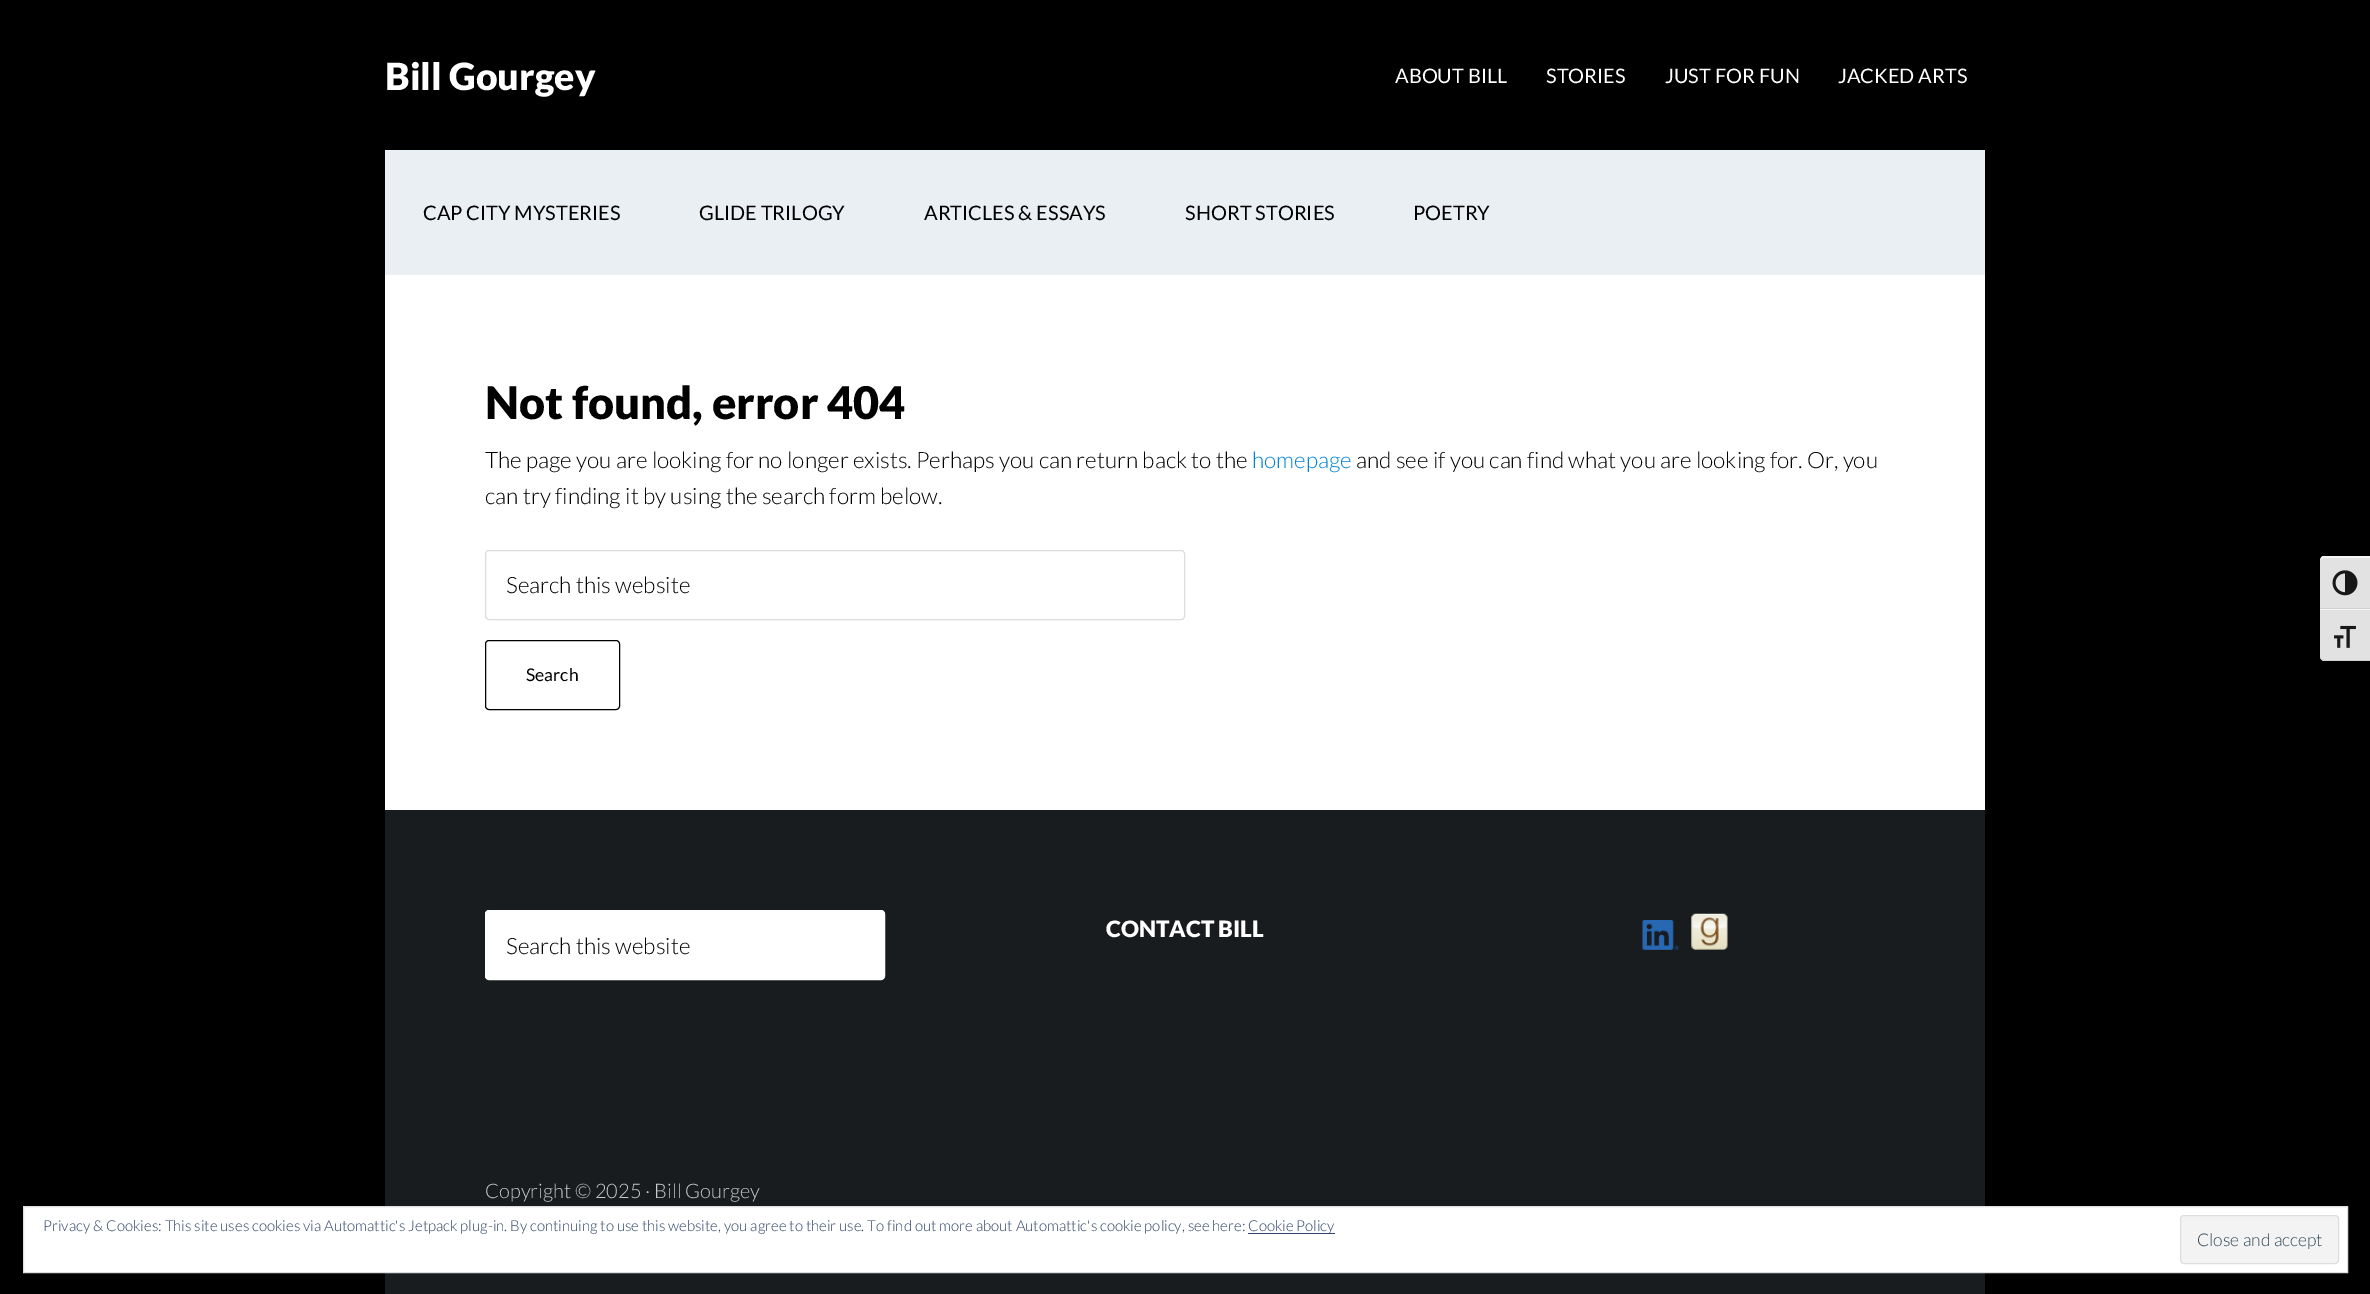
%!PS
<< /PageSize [2370 1294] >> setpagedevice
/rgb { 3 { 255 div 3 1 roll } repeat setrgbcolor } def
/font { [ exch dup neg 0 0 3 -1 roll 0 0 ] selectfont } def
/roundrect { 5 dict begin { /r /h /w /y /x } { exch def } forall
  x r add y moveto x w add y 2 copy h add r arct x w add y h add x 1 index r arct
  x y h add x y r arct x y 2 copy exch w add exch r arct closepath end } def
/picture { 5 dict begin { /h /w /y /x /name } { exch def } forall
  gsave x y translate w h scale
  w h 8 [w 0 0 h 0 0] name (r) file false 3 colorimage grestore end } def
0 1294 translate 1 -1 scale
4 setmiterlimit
0 0 0 rgb
0 0 2370 1294 rectfill
255 255 255 rgb
385 275 1600 535 rectfill
234 239 244 rgb
385 150 1600 125 rectfill
221 221 221 rgb
485.5 550.5 699 69 3.5 roundrect stroke
0 0 0 rgb
485.5 640.5 134 69 3.5 roundrect stroke
24 28 30 rgb
385 810 1600 484 rectfill
(img/1.rgb) 1642 920 37 30 picture
(img/2.rgb) 1691 913 37 37 picture
255 255 255 rgb
485.5 910.5 399 69 3.5 roundrect gsave fill grestore
stroke
226 226 226 rgb
2325 556 moveto 2370 556 lineto 2370 609 lineto 2320 609 lineto 2320 561 lineto 2320 558 2322 556 2325 556 curveto closepath fill
245 245 245 rgb
2325 558 moveto 2322 558 2320 559 2320 561 curveto 2320 559 2321 557 2323 556 curveto 2370 556 lineto 2370 558 lineto closepath fill
210 210 210 rgb
2320 608 50 1 rectfill
(img/3.rgb) 2332 570 26 26 picture
226 226 226 rgb
2320 609 moveto 2370 609 lineto 2370 661 lineto 2325 661 lineto 2322 661 2320 659 2320 656 curveto closepath fill
245 245 245 rgb
2320 609 50 1 rectfill
210 210 210 rgb
2370 661 moveto 2370 660 lineto 2325 660 lineto 2322 660 2320 658 2320 656 curveto 2320 659 2322 661 2325 661 curveto closepath fill
(img/4.rgb) 2334 625 22 23 picture
255 255 255 rgb
23.5 1206.5 moveto 2347.5 1206.5 lineto 2347.5 1272.5 lineto 23.5 1272.5 lineto closepath gsave fill grestore
222 222 222 rgb
stroke
46 68 103 rgb
1248 1233 87 1 rectfill
243 243 243 rgb
2180.5 1215.5 158 48 3.5 roundrect gsave fill grestore
222 222 222 rgb
stroke
/Lato-Black 37.5 font
255 255 255 rgb
385 90 moveto (Bill Gourgey) show
/Lato-Regular 20 font
[
  [(ABOUT BILL) 1395 83]
  [(STORIES) 1546 83]
  [(JUST FOR FUN) 1665 83]
  [(JACKED ARTS) 1838 83]
] { aload pop moveto show } forall
0 0 0 rgb
[
  [(CAP CITY MYSTERIES) 423 220]
  [(GLIDE TRILOGY) 699 220]
  [(ARTICLES & ESSAYS) 924 220]
  [(SHORT STORIES) 1185 220]
  [(POETRY) 1413 220]
] { aload pop moveto show } forall
/Lato-Black 45 font
485 419 moveto (Not found, error 404) show
/Lato-Light 22.5 font
485 468 moveto (The page you are looking for no longer exists. Perhaps you can return back to the) show
0 133 218 rgb
1252 468 moveto (homepage) show
0 0 0 rgb
[
  [(and see if you can find what you are looking for. Or, you) 1356 468]
  [(can try finding it by using the search form below.) 485 504]
  [(Search this website) 506 593]
] { aload pop moveto show } forall
/Lato-Regular 17.5 font
526 681 moveto (Search) show
/Lato-Black 22.5 font
255 255 255 rgb
1106 937 moveto (CONTACT BILL) show
/Lato-Light 22.5 font
0 0 0 rgb
506 954 moveto (Search this website) show
/Lato-Light 20 font
204 204 204 rgb
485 1198 moveto (Copyright © 2025 · Bill Gourgey) show
/Lato-Light 15 font
46 68 103 rgb
43 1231 moveto (Privacy & Cookies: This site uses cookies via Automattic's Jetpack plug-in. By continuing to use this website, you agree to their use. To find out more about Automattic's cookie policy, see here:) show
1248 1231 moveto (Cookie Policy) show
/Lato-Light 17.5 font
46 68 83 rgb
2197 1246 moveto (Close and accept) show
showpage
